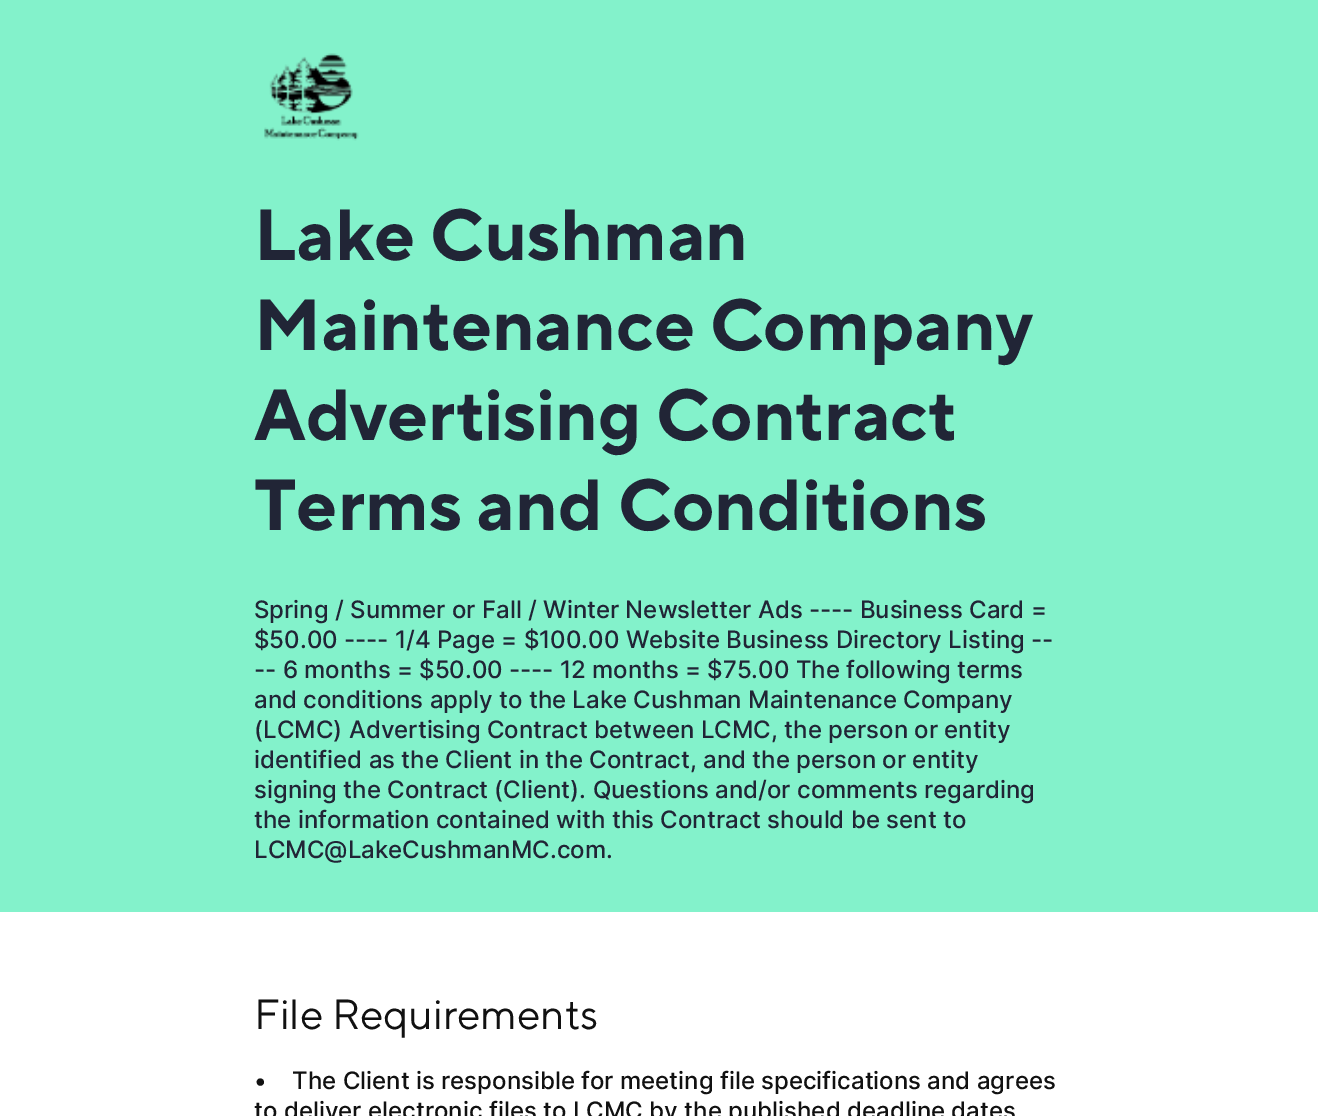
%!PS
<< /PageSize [1318 1116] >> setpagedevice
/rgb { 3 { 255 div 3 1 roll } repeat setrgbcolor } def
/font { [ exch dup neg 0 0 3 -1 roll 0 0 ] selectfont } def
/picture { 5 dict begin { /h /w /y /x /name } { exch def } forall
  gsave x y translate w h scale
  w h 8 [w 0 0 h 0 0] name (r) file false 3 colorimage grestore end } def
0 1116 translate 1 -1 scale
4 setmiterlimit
255 255 255 rgb
0 0 1318 1116 rectfill
131 242 203 rgb
0 0 1318 912 rectfill
(img/1.rgb) 264 53 95 88 picture
/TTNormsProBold-Bold 72 font
33 37 54 rgb
[
  [(Lake Cushman) 254 260]
  [(Maintenance Company) 254 350]
  [(Advertising Contract) 254 440]
  [(Terms and Conditions) 254 530]
] { aload pop moveto show } forall
/Inter-Medium 24 font
[
  [(Spring / Summer or Fall / Winter Newsletter Ads ---- Business Card =) 254 618]
  [($50.00 ---- 1/4 Page = $100.00 Website Business Directory Listing --) 254 648]
  [(-- 6 months = $50.00 ---- 12 months = $75.00 The following terms) 254 678]
  [(and conditions apply to the Lake Cushman Maintenance Company) 254 708]
  [(\(LCMC\) Advertising Contract between LCMC, the person or entity) 254 738]
  [(identified as the Client in the Contract, and the person or entity) 254 768]
  [(signing the Contract \(Client\). Questions and/or comments regarding) 254 798]
  [(the information contained with this Contract should be sent to) 254 828]
  [(LCMC@LakeCushmanMC.com.) 254 858]
] { aload pop moveto show } forall
/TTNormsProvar-Regular 42 font
17 17 17 rgb
254 1029 moveto (File Requirements) show
/Inter-Medium 24 font
254 1089 moveto (•    The Client is responsible for meeting file specifications and agrees) show
254 1119 moveto (to deliver electronic files to LCMC by the published deadline dates) show
showpage
